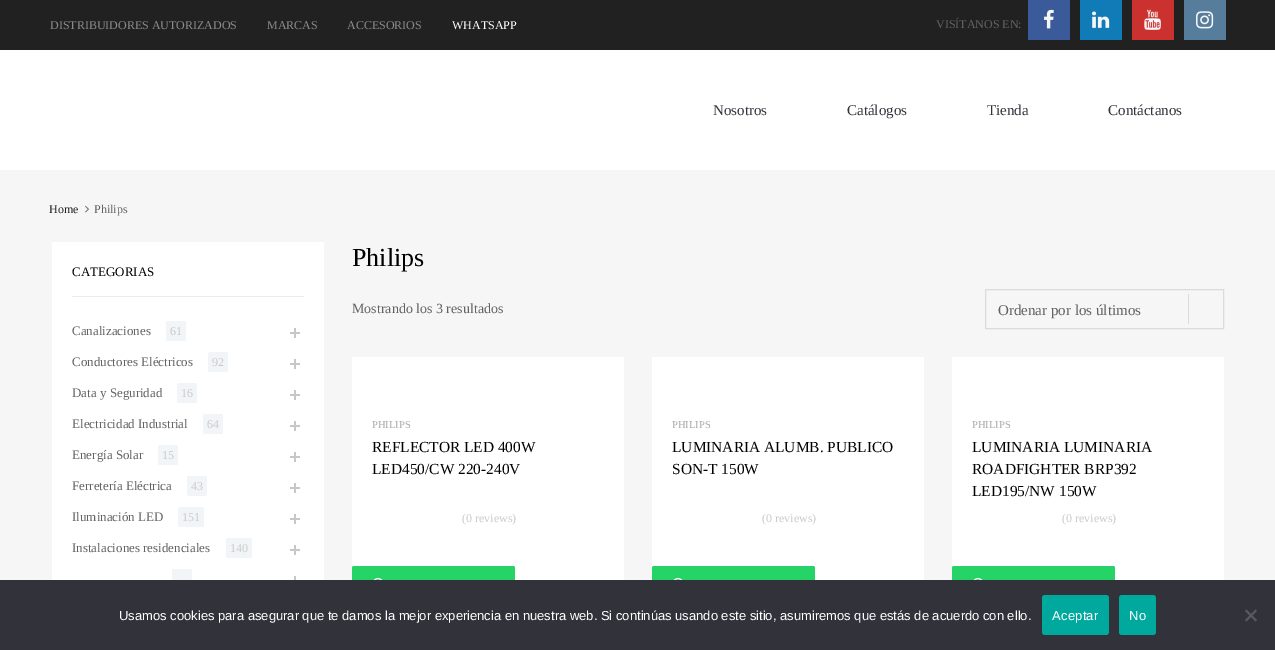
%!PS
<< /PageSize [1275 650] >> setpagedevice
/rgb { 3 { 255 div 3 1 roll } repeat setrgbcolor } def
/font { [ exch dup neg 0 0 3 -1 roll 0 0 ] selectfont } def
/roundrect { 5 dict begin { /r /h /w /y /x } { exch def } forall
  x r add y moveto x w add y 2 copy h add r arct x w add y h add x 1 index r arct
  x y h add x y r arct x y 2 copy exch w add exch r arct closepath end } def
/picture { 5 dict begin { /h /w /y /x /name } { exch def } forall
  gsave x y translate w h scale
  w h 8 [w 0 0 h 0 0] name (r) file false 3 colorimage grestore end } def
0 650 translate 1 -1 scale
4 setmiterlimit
246 246 246 rgb
0 0 1275 650 rectfill
[
  [0 50 1275 120 255 255 255]
  [0 0 1275 50 33 33 33]
  [1028 0 42 40 59 90 154]
] { aload pop rgb rectfill } forall
(img/1.rgb) 1044 9 10 20 picture
17 123 183 rgb
1080 0 42 40 rectfill
(img/2.rgb) 1092 11 18 17 picture
203 49 47 rgb
1132 0 42 40 rectfill
(img/3.rgb) 1144 9 17 21 picture
86 125 156 rgb
1184 0 42 40 rectfill
(img/4.rgb) 1196 11 18 18 picture
(img/5.rgb) 85 205 4 8 picture
255 255 255 rgb
52 242 272 338 rectfill
235 235 235 rgb
72 296 232 1 rectfill
241 245 247 rgb
166 321 20 20 2 roundrect fill
199 199 199 rgb
290 332 10 2 rectfill
294 328 2 10 rectfill
241 245 247 rgb
208 352 20 20 2 roundrect fill
199 199 199 rgb
290 363 10 2 rectfill
294 359 2 10 rectfill
241 245 247 rgb
177 383 20 20 2 roundrect fill
199 199 199 rgb
290 394 10 2 rectfill
294 390 2 10 rectfill
241 245 247 rgb
203 414 20 20 2 roundrect fill
199 199 199 rgb
290 425 10 2 rectfill
294 421 2 10 rectfill
241 245 247 rgb
158 445 20 20 2 roundrect fill
199 199 199 rgb
290 456 10 2 rectfill
294 452 2 10 rectfill
241 245 247 rgb
187 476 20 20 2 roundrect fill
199 199 199 rgb
290 487 10 2 rectfill
294 483 2 10 rectfill
241 245 247 rgb
178 507 26 20 2 roundrect fill
199 199 199 rgb
290 518 10 2 rectfill
294 514 2 10 rectfill
241 245 247 rgb
226 538 26 20 2 roundrect fill
199 199 199 rgb
290 549 10 2 rectfill
294 545 2 10 rectfill
241 245 247 rgb
172 569 20 20 2 roundrect fill
199 199 199 rgb
294 576 2 10 rectfill
219 219 219 rgb
1188 294 1 30 rectfill
985.5 289.5 238 39 rectstroke
255 255 255 rgb
352 357 272 223 rectfill
37 211 102 rgb
352 566 163 40 2 roundrect fill
(img/6.rgb) 373 578 10 2 picture
255 255 255 rgb
652 357 272 223 rectfill
37 211 102 rgb
652 566 163 40 2 roundrect fill
(img/6.rgb) 673 578 10 2 picture
255 255 255 rgb
952 357 272 223 rectfill
37 211 102 rgb
952 566 163 40 2 roundrect fill
(img/6.rgb) 973 578 10 2 picture
50 50 58 rgb
0 580 1275 70 rectfill
0 169 157 rgb
1042 595 67 40 3 roundrect fill
1119 595 37 40 3 roundrect fill
89 89 93 rgb
1255.5 609.5 moveto 1257 611 lineto 1246.5 621.5 lineto 1245 620 lineto closepath fill
1245 611 moveto 1246.5 609.5 lineto 1257 620 lineto 1255.5 621.5 lineto closepath fill
/LiberationSerif-Regular 12 font
139 139 139 rgb
[
  [(DISTRIBUIDORES AUTORIZADOS) 50 29]
  [(MARCAS) 267 29]
  [(ACCESORIOS) 347 29]
] { aload pop moveto show } forall
255 255 255 rgb
452 29 moveto (WHATSAPP) show
98 98 98 rgb
936 28 moveto (VISÍTANOS EN:) show
/LiberationSerif-Regular 15 font
49 53 59 rgb
[
  [(Nosotros) 713 115]
  [(Catálogos) 847 115]
  [(Tienda) 987 115]
  [(Contáctanos) 1108 115]
] { aload pop moveto show } forall
/LiberationSerif-Regular 12 font
33 33 33 rgb
49 213 moveto (Home) show
98 98 98 rgb
94 213 moveto (Philips) show
/LiberationSerif-Regular 13 font
0 0 0 rgb
72 276 moveto (CATEGORIAS) show
98 98 98 rgb
72 335 moveto (Canalizaciones) show
/LiberationSerif-Regular 12 font
202 202 202 rgb
170 335 moveto (61) show
/LiberationSerif-Regular 13 font
98 98 98 rgb
72 366 moveto (Conductores Eléctricos) show
/LiberationSerif-Regular 12 font
202 202 202 rgb
212 366 moveto (92) show
/LiberationSerif-Regular 13 font
98 98 98 rgb
72 397 moveto (Data y Seguridad) show
/LiberationSerif-Regular 12 font
202 202 202 rgb
181 397 moveto (16) show
/LiberationSerif-Regular 13 font
98 98 98 rgb
72 428 moveto (Electricidad Industrial) show
/LiberationSerif-Regular 12 font
202 202 202 rgb
207 428 moveto (64) show
/LiberationSerif-Regular 13 font
98 98 98 rgb
72 459 moveto (Energía Solar) show
/LiberationSerif-Regular 12 font
202 202 202 rgb
162 459 moveto (15) show
/LiberationSerif-Regular 13 font
98 98 98 rgb
72 490 moveto (Ferretería Eléctrica) show
/LiberationSerif-Regular 12 font
202 202 202 rgb
191 490 moveto (43) show
/LiberationSerif-Regular 13 font
98 98 98 rgb
72 521 moveto (Iluminación LED) show
/LiberationSerif-Regular 12 font
202 202 202 rgb
182 521 moveto (151) show
/LiberationSerif-Regular 13 font
98 98 98 rgb
72 552 moveto (Instalaciones residenciales) show
/LiberationSerif-Regular 12 font
202 202 202 rgb
230 552 moveto (140) show
/LiberationSerif-Regular 26 font
0 0 0 rgb
352 266 moveto (Philips) show
/LiberationSerif-Regular 14 font
98 98 98 rgb
352 313 moveto (Mostrando los 3 resultados) show
/LiberationSerif-Regular 15 font
998 315 moveto (Ordenar por los últimos) show
/LiberationSerif-Regular 10.5 font
169 169 169 rgb
372 428 moveto (PHILIPS) show
/LiberationSerif-Regular 15.4 font
0 0 0 rgb
372 452 moveto (REFLECTOR LED 400W) show
372 474 moveto (LED450/CW 220-240V) show
/LiberationSerif-Regular 12 font
202 202 202 rgb
462 522 moveto (\(0 reviews\)) show
/LiberationSerif-Regular 10.5 font
169 169 169 rgb
672 428 moveto (PHILIPS) show
/LiberationSerif-Regular 15.4 font
0 0 0 rgb
672 452 moveto (LUMINARIA ALUMB. PUBLICO) show
672 474 moveto (SON-T 150W) show
/LiberationSerif-Regular 12 font
202 202 202 rgb
762 522 moveto (\(0 reviews\)) show
/LiberationSerif-Regular 10.5 font
169 169 169 rgb
972 428 moveto (PHILIPS) show
/LiberationSerif-Regular 15.4 font
0 0 0 rgb
[
  [(LUMINARIA LUMINARIA) 972 452]
  [(ROADFIGHTER BRP392) 972 474]
  [(LED195/NW 150W) 972 496]
] { aload pop moveto show } forall
/LiberationSerif-Regular 12 font
202 202 202 rgb
1062 522 moveto (\(0 reviews\)) show
/LiberationSans-Regular 13 font
255 255 255 rgb
119 620 moveto (Usamos cookies para asegurar que te damos la mejor experiencia en nuestra web. Si continúas usando este sitio, asumiremos que estás de acuerdo con ello.) show
1052 620 moveto 0.25 0 (Aceptar) ashow
1129 620 moveto 0.25 0 (No) ashow
showpage
